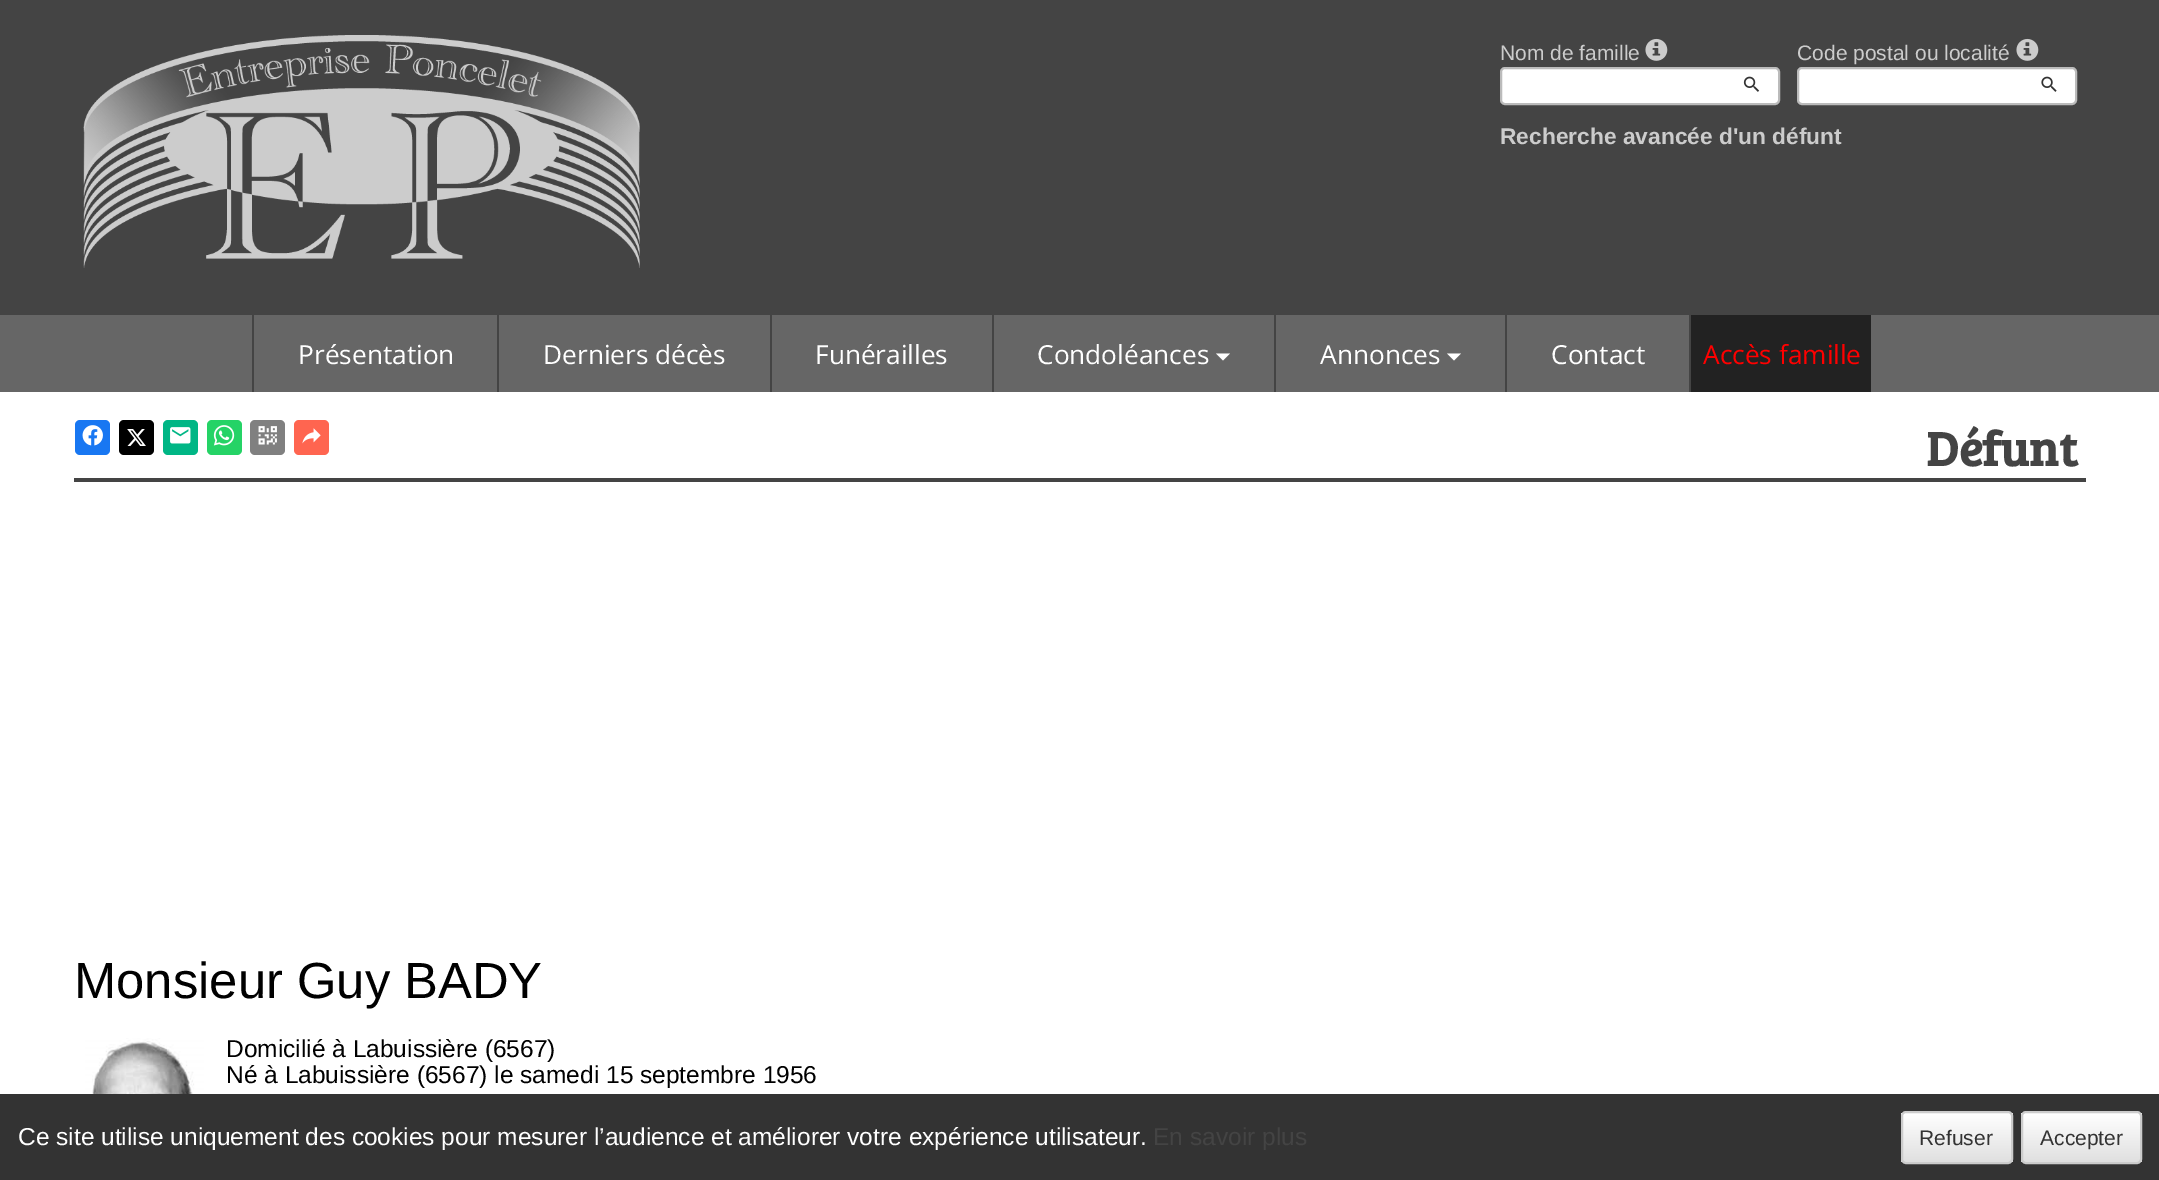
%!PS
<< /PageSize [2159 1180] >> setpagedevice
/rgb { 3 { 255 div 3 1 roll } repeat setrgbcolor } def
/font { [ exch dup neg 0 0 3 -1 roll 0 0 ] selectfont } def
/roundrect { 5 dict begin { /r /h /w /y /x } { exch def } forall
  x r add y moveto x w add y 2 copy h add r arct x w add y h add x 1 index r arct
  x y h add x y r arct x y 2 copy exch w add exch r arct closepath end } def
/picture { 5 dict begin { /h /w /y /x /name } { exch def } forall
  gsave x y translate w h scale
  w h 8 [w 0 0 h 0 0] name (r) file false 3 colorimage grestore end } def
0 1180 translate 1 -1 scale
4 setmiterlimit
255 255 255 rgb
0 0 2159 1180 rectfill
68 68 68 rgb
0 0 2159 315 rectfill
(img/1.rgb) 83 35 557 233 picture
(img/2.rgb) 1645 38 23 23 picture
255 255 255 rgb
1501 68 278 36 4 roundrect gsave fill grestore
187 187 187 rgb
2 setlinewidth
stroke
(img/3.rgb) 1743 76 17 16 picture
(img/2.rgb) 2016 38 23 23 picture
255 255 255 rgb
1798 68 278 36 4 roundrect gsave fill grestore
187 187 187 rgb
stroke
(img/4.rgb) 2041 76 16 16 picture
[
  [0 315 2159 77 102 102 102]
  [252 315 2 77 68 68 68]
  [497 315 2 77 68 68 68]
  [770 315 2 77 68 68 68]
  [992 315 2 77 68 68 68]
] { aload pop rgb rectfill } forall
255 255 255 rgb
1216 353.5 moveto 1230 353.5 lineto 1223 360.5 lineto closepath fill
68 68 68 rgb
1274 315 2 77 rectfill
255 255 255 rgb
1447 353.5 moveto 1461 353.5 lineto 1454 360.5 lineto closepath fill
[
  [1505 315 2 77 68 68 68]
  [1689 315 2 77 68 68 68]
  [1691 315 180 77 34 34 34]
] { aload pop rgb rectfill } forall
24 119 242 rgb
75 420 35 35 5 roundrect fill
(img/5.rgb) 82 425 21 21 picture
0 0 0 rgb
119 420 35 35 5 roundrect fill
(img/6.rgb) 127 429 19 17 picture
0 182 133 rgb
163 420 35 35 5 roundrect fill
(img/7.rgb) 170 427 21 17 picture
37 211 102 rgb
207 420 35 35 5 roundrect fill
(img/8.rgb) 213 425 22 21 picture
128 128 128 rgb
250 420 35 35 5 roundrect fill
(img/9.rgb) 258 426 19 19 picture
255 101 80 rgb
294 420 35 35 5 roundrect fill
(img/10.rgb) 302 428 19 16 picture
68 68 68 rgb
74 478 2012 4 rectfill
(img/11.rgb) 85 1038 119 56 picture
51 51 51 rgb
0 1094 2159 86 rectfill
gsave
1901 1111 112 53 5 roundrect clip newpath
gsave 1901 1113 moveto 2013 1113 lineto 2013 1162 lineto 1901 1162 lineto closepath clip newpath
<< /ShadingType 2 /ColorSpace /DeviceRGB /Coords [1957 1113 1957 1162] /Extend [true true] /Function << /FunctionType 2 /Domain [0 1] /C0 [1 1 1] /C1 [0.878 0.878 0.878] /N 1 >> >> shfill grestore
grestore
204 204 204 rgb
1902 1112 110 51 4 roundrect stroke
gsave
2021 1111 121 53 5 roundrect clip newpath
gsave 2021 1113 moveto 2142 1113 lineto 2142 1162 lineto 2021 1162 lineto closepath clip newpath
<< /ShadingType 2 /ColorSpace /DeviceRGB /Coords [2082 1113 2082 1162] /Extend [true true] /Function << /FunctionType 2 /Domain [0 1] /C0 [1 1 1] /C1 [0.878 0.878 0.878] /N 1 >> >> shfill grestore
grestore
2022 1112 119 51 4 roundrect stroke
/LiberationSans-Regular 21 font
1500 60 moveto (Nom de famille) show
1797 60 moveto (Code postal ou localité) show
/LiberationSans-Bold 22.75 font
1500 144 moveto (Recherche avancée d'un défunt) show
/OpenSans-Regular 26.25 font
255 255 255 rgb
[
  [(Présentation) 298 364]
  [(Derniers décès) 543 364]
  [(Funérailles) 815 364]
  [(Condoléances) 1037 364]
  [(Annonces) 1320 364]
  [(Contact) 1551 364]
] { aload pop moveto show } forall
255 0 0 rgb
1703 364 moveto (Accès famille) show
/BreeSerif-Bold 49 font
68 68 68 rgb
1926 466 moveto (Défunt) show
/LiberationSans-Regular 50.75 font
0 0 0 rgb
74 998 moveto (Monsieur Guy BADY) show
/LiberationSans-Regular 24.5 font
226 1057 moveto (Domicilié à Labuissière \(6567\)) show
226 1083 moveto (Né à Labuissière \(6567\) le samedi 15 septembre 1956) show
255 255 255 rgb
18 1145 moveto (Ce site utilise uniquement des cookies pour mesurer l’audience et améliorer votre expérience utilisateur.) show
68 68 68 rgb
1153 1145 moveto (En savoir plus) show
/LiberationSans-Regular 21 font
51 51 51 rgb
1919 1145 moveto (Refuser) show
2040 1145 moveto (Accepter) show
showpage
